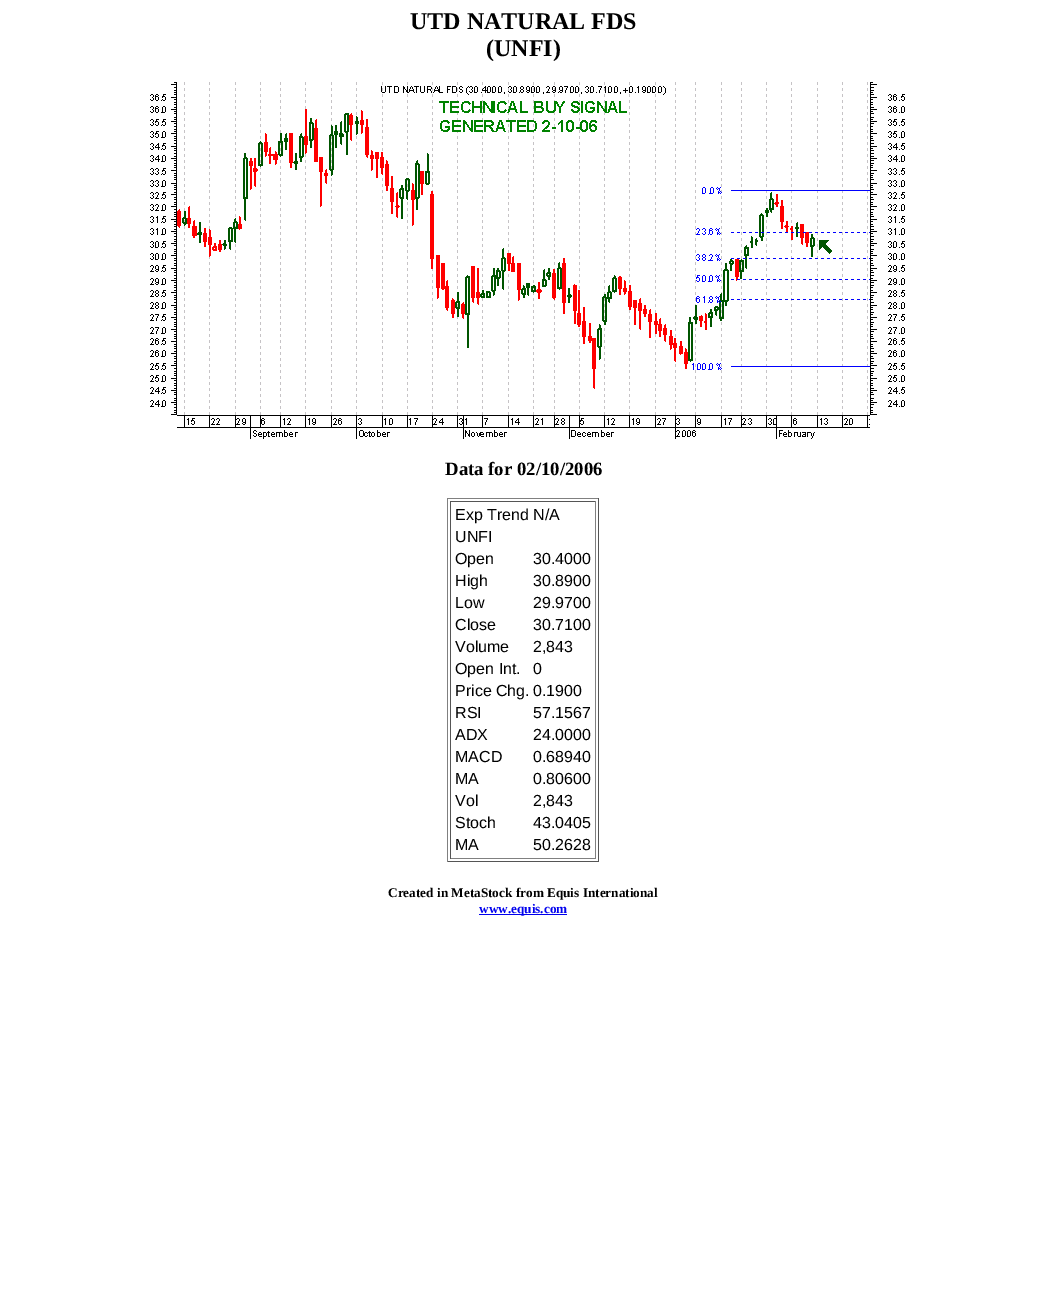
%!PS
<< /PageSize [1046 1292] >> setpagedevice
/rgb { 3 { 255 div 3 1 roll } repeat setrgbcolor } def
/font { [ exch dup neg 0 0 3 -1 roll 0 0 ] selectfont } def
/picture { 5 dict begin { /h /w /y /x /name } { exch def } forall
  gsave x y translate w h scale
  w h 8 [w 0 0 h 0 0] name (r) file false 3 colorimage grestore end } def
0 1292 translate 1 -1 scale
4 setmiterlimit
255 255 255 rgb
0 0 1046 1292 rectfill
(img/1.rgb) 150 82 755 357 picture
[
  [447 498 152 1 128 128 128]
  [598 498 1 364 85 85 85]
  [447 861 152 1 85 85 85]
  [447 498 1 364 128 128 128]
  [450 501 146 1 85 85 85]
  [595 501 1 358 128 128 128]
  [450 858 146 1 128 128 128]
  [450 501 1 358 85 85 85]
  [479 914 88 1 0 0 238]
] { aload pop rgb rectfill } forall
/LiberationSerif-Bold 24 font
0 0 0 rgb
410 29 moveto (UTD NATURAL FDS) show
486 56 moveto (\(UNFI\)) show
/LiberationSerif-Bold 18.75 font
445 475 moveto (Data for 02/10/2006) show
/LiberationSans-Regular 16 font
[
  [(Exp Trend) 455 520]
  [(N/A) 533 520]
  [(UNFI) 455 542]
  [(Open) 455 564]
  [(30.4000) 533 564]
  [(High) 455 586]
  [(30.8900) 533 586]
  [(Low) 455 608]
  [(29.9700) 533 608]
  [(Close) 455 630]
  [(30.7100) 533 630]
  [(Volume) 455 652]
  [(2,843) 533 652]
  [(Open Int.) 455 674]
  [(0) 533 674]
  [(Price Chg.) 455 696]
  [(0.1900) 533 696]
  [(RSI) 455 718]
  [(57.1567) 533 718]
  [(ADX) 455 740]
  [(24.0000) 533 740]
  [(MACD) 455 762]
  [(0.68940) 533 762]
  [(MA) 455 784]
  [(0.80600) 533 784]
  [(Vol) 455 806]
  [(2,843) 533 806]
  [(Stoch) 455 828]
  [(43.0405) 533 828]
  [(MA) 455 850]
  [(50.2628) 533 850]
] { aload pop moveto show } forall
/LiberationSerif-Bold 13.25 font
388 897 moveto (Created in MetaStock from Equis International) show
0 0 238 rgb
479 913 moveto (www.equis.com) show
showpage
